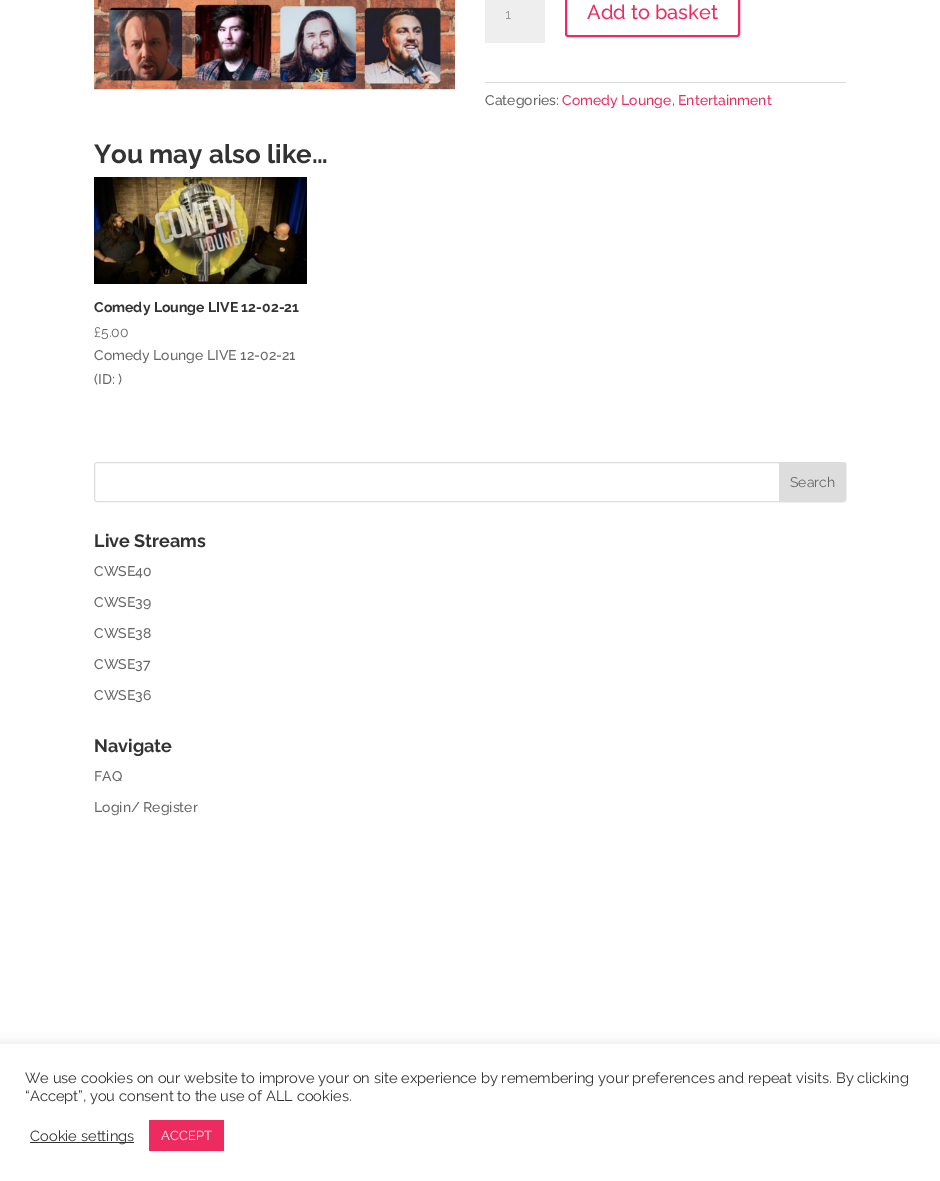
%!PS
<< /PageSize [940 1181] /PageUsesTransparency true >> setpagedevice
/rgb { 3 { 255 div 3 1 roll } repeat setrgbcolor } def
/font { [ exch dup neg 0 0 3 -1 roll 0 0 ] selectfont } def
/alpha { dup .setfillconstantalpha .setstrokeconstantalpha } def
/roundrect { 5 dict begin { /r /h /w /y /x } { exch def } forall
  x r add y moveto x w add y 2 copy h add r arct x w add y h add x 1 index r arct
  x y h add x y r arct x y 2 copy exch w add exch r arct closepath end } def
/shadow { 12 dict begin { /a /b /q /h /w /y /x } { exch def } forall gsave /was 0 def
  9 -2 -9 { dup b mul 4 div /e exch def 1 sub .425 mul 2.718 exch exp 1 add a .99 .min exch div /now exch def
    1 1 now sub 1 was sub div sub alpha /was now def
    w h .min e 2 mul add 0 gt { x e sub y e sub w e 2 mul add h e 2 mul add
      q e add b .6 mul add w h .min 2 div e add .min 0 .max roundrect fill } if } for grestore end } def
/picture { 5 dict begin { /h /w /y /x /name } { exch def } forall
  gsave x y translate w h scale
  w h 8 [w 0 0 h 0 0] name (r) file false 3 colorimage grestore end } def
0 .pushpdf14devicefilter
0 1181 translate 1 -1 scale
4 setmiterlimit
255 255 255 rgb
0 0 940 1181 rectfill
(img/1.rgb) 94 0 361 91 picture
238 238 238 rgb
485 0 60 43 rectfill
238 43 96 rgb
2 setlinewidth
566 -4 173 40 2 roundrect stroke
218 218 218 rgb
485 82 361 1 rectfill
(img/2.rgb) 94 177 213 107 picture
221 221 221 rgb
1 setlinewidth
94.5 462.5 751 39 2.5 roundrect stroke
779.5 462.5 moveto 843 462.5 lineto 844.5 462.5 845.5 463.5 845.5 465 curveto 845.5 499 lineto 845.5 500.5 844.5 501.5 843 501.5 curveto 779.5 501.5 lineto closepath gsave fill grestore
stroke
172 171 171 rgb
0 1043 940 137 0 5 0.3 shadow
[
  [0 1044 940 137 255 255 255]
  [30 1142 104 1 51 51 51]
  [149 1120 75 31 238 43 96]
] { aload pop rgb rectfill } forall
/Raleway-Regular 14 font
153 153 153 rgb
505 19 moveto (1) show
/Raleway-Medium 20 font
238 43 96 rgb
587 19 moveto (Add to basket) show
/Raleway-Medium 14 font
102 102 102 rgb
485 105 moveto (Categories:) show
238 43 96 rgb
562 105 moveto (Comedy Lounge) show
102 102 102 rgb
672 105 moveto (,) show
238 43 96 rgb
678 105 moveto (Entertainment) show
/Raleway-Bold 26 font
51 51 51 rgb
94 163 moveto (You may also like…) show
/Raleway-Bold 14 font
94 312 moveto (Comedy Lounge LIVE 12-02-21) show
/Raleway-Regular 14 font
102 102 102 rgb
94 337 moveto (£5.00) show
/Raleway-Medium 14 font
94 360 moveto (Comedy Lounge LIVE 12-02-21) show
94 384 moveto (\(ID: \)) show
/Raleway-Regular 14 font
790 487 moveto (Search) show
/Raleway-Bold 18 font
51 51 51 rgb
94 547 moveto (Live Streams) show
/Raleway-Medium 14 font
102 102 102 rgb
[
  [(CWSE40) 94 576]
  [(CWSE39) 94 607]
  [(CWSE38) 94 638]
  [(CWSE37) 94 669]
  [(CWSE36) 94 700]
] { aload pop moveto show } forall
/Raleway-Bold 18 font
51 51 51 rgb
94 752 moveto (Navigate) show
/Raleway-Medium 14 font
102 102 102 rgb
94 781 moveto (FAQ) show
94 812 moveto (Login/ Register) show
/Raleway-Regular 14.67 font
51 51 51 rgb
[
  [(We use cookies on our website to improve your on site experience by remembering your preferences and repeat visits. By clicking) 25 1083]
  [(“Accept”, you consent to the use of ALL cookies.) 25 1101]
  [(Cookie settings) 30 1141]
] { aload pop moveto show } forall
/Raleway-Regular 13 font
255 255 255 rgb
161 1140 moveto (ACCEPT) show
.poppdf14devicefilter showpage
